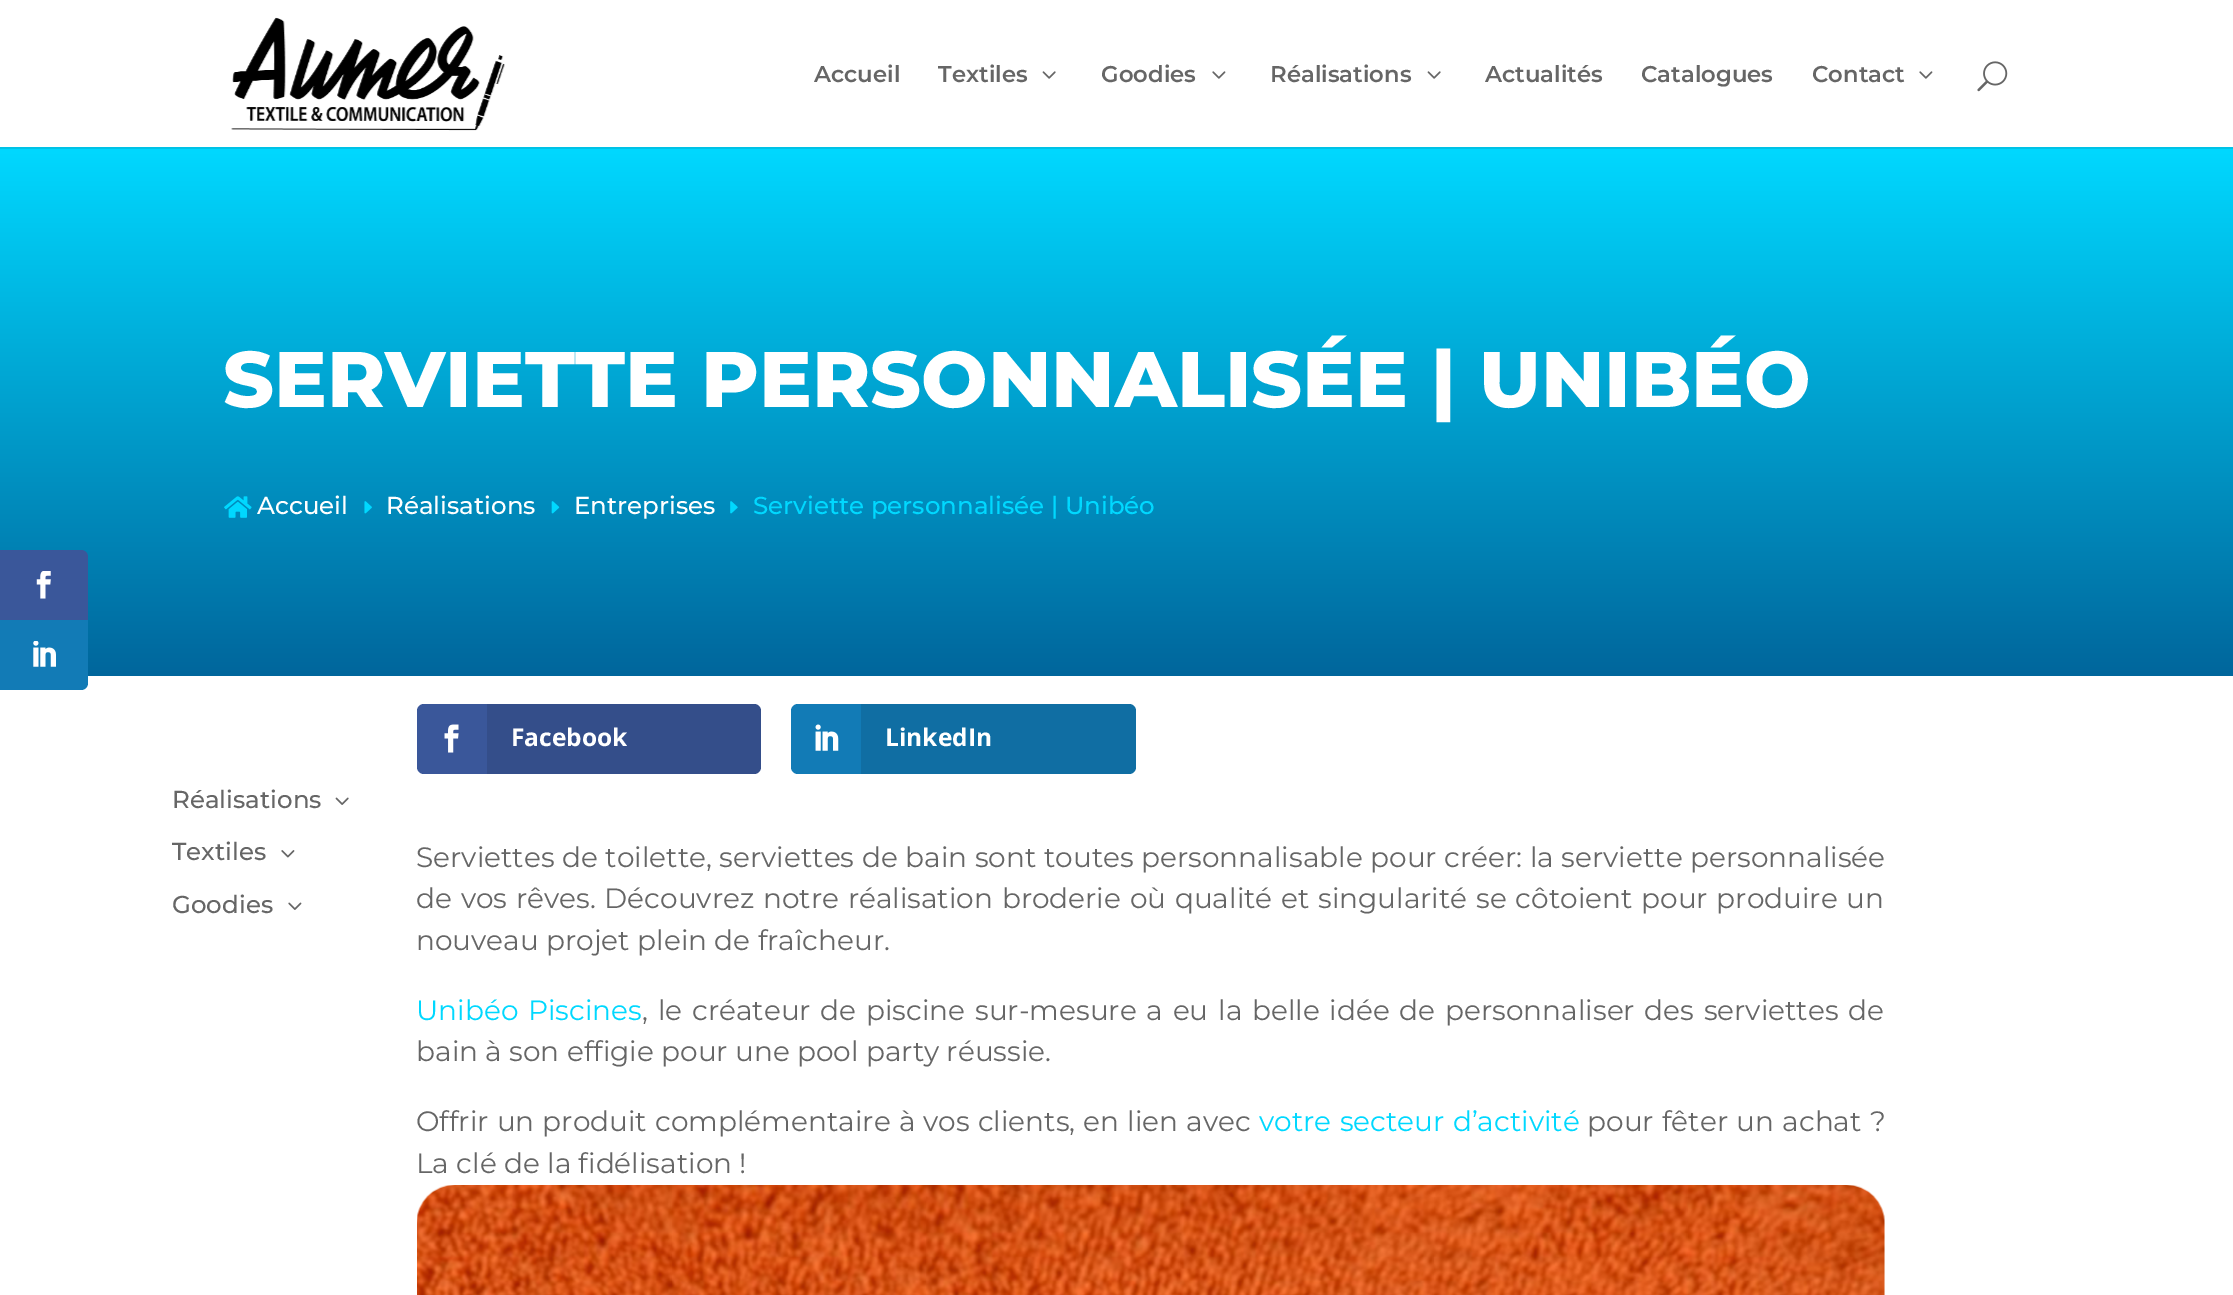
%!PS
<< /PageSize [2233 1295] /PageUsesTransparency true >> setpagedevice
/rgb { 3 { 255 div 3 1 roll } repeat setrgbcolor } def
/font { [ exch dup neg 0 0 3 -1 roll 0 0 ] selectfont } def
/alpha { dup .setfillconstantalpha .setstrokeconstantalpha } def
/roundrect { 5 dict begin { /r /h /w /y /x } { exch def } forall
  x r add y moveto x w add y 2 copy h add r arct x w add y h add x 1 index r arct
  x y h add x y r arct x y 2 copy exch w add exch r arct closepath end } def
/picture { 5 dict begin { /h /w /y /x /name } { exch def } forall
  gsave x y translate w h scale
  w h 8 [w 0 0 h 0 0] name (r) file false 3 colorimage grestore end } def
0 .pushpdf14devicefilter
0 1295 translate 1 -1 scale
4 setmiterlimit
255 255 255 rgb
0 0 2233 1295 rectfill
gsave 0 149 moveto 2233 149 lineto 2233 676 lineto 0 676 lineto closepath clip newpath
<< /ShadingType 2 /ColorSpace /DeviceRGB /Coords [1117 147 1117 725] /Extend [true true] /Function << /FunctionType 2 /Domain [0 1] /C0 [0 0.847 1] /C1 [0 0.357 0.576] /N 1 >> >> shfill grestore
58 87 154 rgb
0 550 moveto 81 550 lineto 85 550 88 553 88 557 curveto 88 620 lineto 0 620 lineto closepath fill
(img/1.rgb) 36 571 15 28 picture
18 123 182 rgb
0 620 moveto 88 620 lineto 88 683 lineto 88 687 85 690 81 690 curveto 0 690 lineto closepath fill
(img/2.rgb) 33 641 23 26 picture
0 194 230 rgb
0 147 2233 2 rectfill
(img/3.rgb) 231 17 274 114 picture
(img/4.rgb) 1042 71 14 8 picture
(img/5.rgb) 1212 71 14 8 picture
(img/4.rgb) 1427 71 14 8 picture
(img/5.rgb) 1919 71 14 8 picture
(img/6.rgb) 1977 61 31 31 picture
(img/7.rgb) 224 496 28 22 picture
(img/8.rgb) 364 501 8 13 picture
(img/9.rgb) 551 501 9 13 picture
(img/10.rgb) 730 501 8 13 picture
(img/11.rgb) 335 797 14 8 picture
(img/12.rgb) 281 850 14 8 picture
(img/13.rgb) 288 902 14 8 picture
58 87 154 rgb
417 704 344 70 7 roundrect fill
(img/14.rgb) 444 724 15 29 picture
0.1 alpha
0 0 0 rgb
487 704 moveto 754 704 lineto 758 704 761 707 761 711 curveto 761 767 lineto 761 771 758 774 754 774 curveto 487 774 lineto closepath fill
1 alpha
18 123 182 rgb
791 704 345 70 7 roundrect fill
(img/15.rgb) 815 724 24 27 picture
0.1 alpha
0 0 0 rgb
861 704 moveto 1129 704 lineto 1133 704 1136 707 1136 711 curveto 1136 767 lineto 1136 771 1133 774 1129 774 curveto 861 774 lineto closepath fill
1 alpha
(img/16.rgb) 417 1185 1468 110 picture
/Montserrat-SemiBold 22.75 font
102 102 102 rgb
[
  [(Accueil) 814 82]
  [(Textiles) 938 82]
  [(Goodies) 1101 82]
  [(Réalisations) 1270 82]
  [(Actualités) 1485 82]
  [(Catalogues) 1641 82]
  [(Contact) 1812 82]
] { aload pop moveto show } forall
/Montserrat-ExtraBold 78.75 font
255 255 255 rgb
223 407 moveto (SERVIETTE PERSONNALISÉE | UNIBÉO) show
/Montserrat-Medium 24.5 font
[
  [(Accueil) 257 514]
  [(Réalisations) 386 514]
  [(Entreprises) 574 514]
] { aload pop moveto show } forall
0 216 255 rgb
753 514 moveto (Serviette personnalisée | Unibéo) show
102 102 102 rgb
[
  [(Réalisations) 172 808]
  [(Textiles) 172 860]
  [(Goodies) 172 913]
] { aload pop moveto show } forall
/OpenSans-Bold 24.5 font
255 255 255 rgb
511 746 moveto (Facebook) show
885 746 moveto (LinkedIn) show
/Montserrat-Regular 28 font
102 102 102 rgb
416 867 moveto 0.25 0 32 (Serviettes de toilette, serviettes de bain sont toutes personnalisable pour créer: la serviette personnalisée) widthshow
416 908 moveto 1.4 0 32 (de vos rêves. Découvrez notre réalisation broderie où qualité et singularité se côtoient pour produire un) widthshow
416 950 moveto (nouveau projet plein de fraîcheur.) show
0 216 255 rgb
416 1020 moveto 2.4 0 32 (Unibéo Piscines) widthshow
102 102 102 rgb
642 1020 moveto 2.4 0 32 (, le créateur de piscine sur-mesure a eu la belle idée de personnaliser des serviettes de) widthshow
416 1061 moveto (bain à son effigie pour une pool party réussie.) show
416 1131 moveto 0.75 0 32 (Offrir un produit complémentaire à vos clients, en lien avec) widthshow
0 216 255 rgb
1259 1131 moveto 1 0 32 (votre secteur d’activité) widthshow
102 102 102 rgb
1587 1131 moveto 1 0 32 (pour fêter un achat ?) widthshow
416 1173 moveto (La clé de la fidélisation !) show
.poppdf14devicefilter showpage
